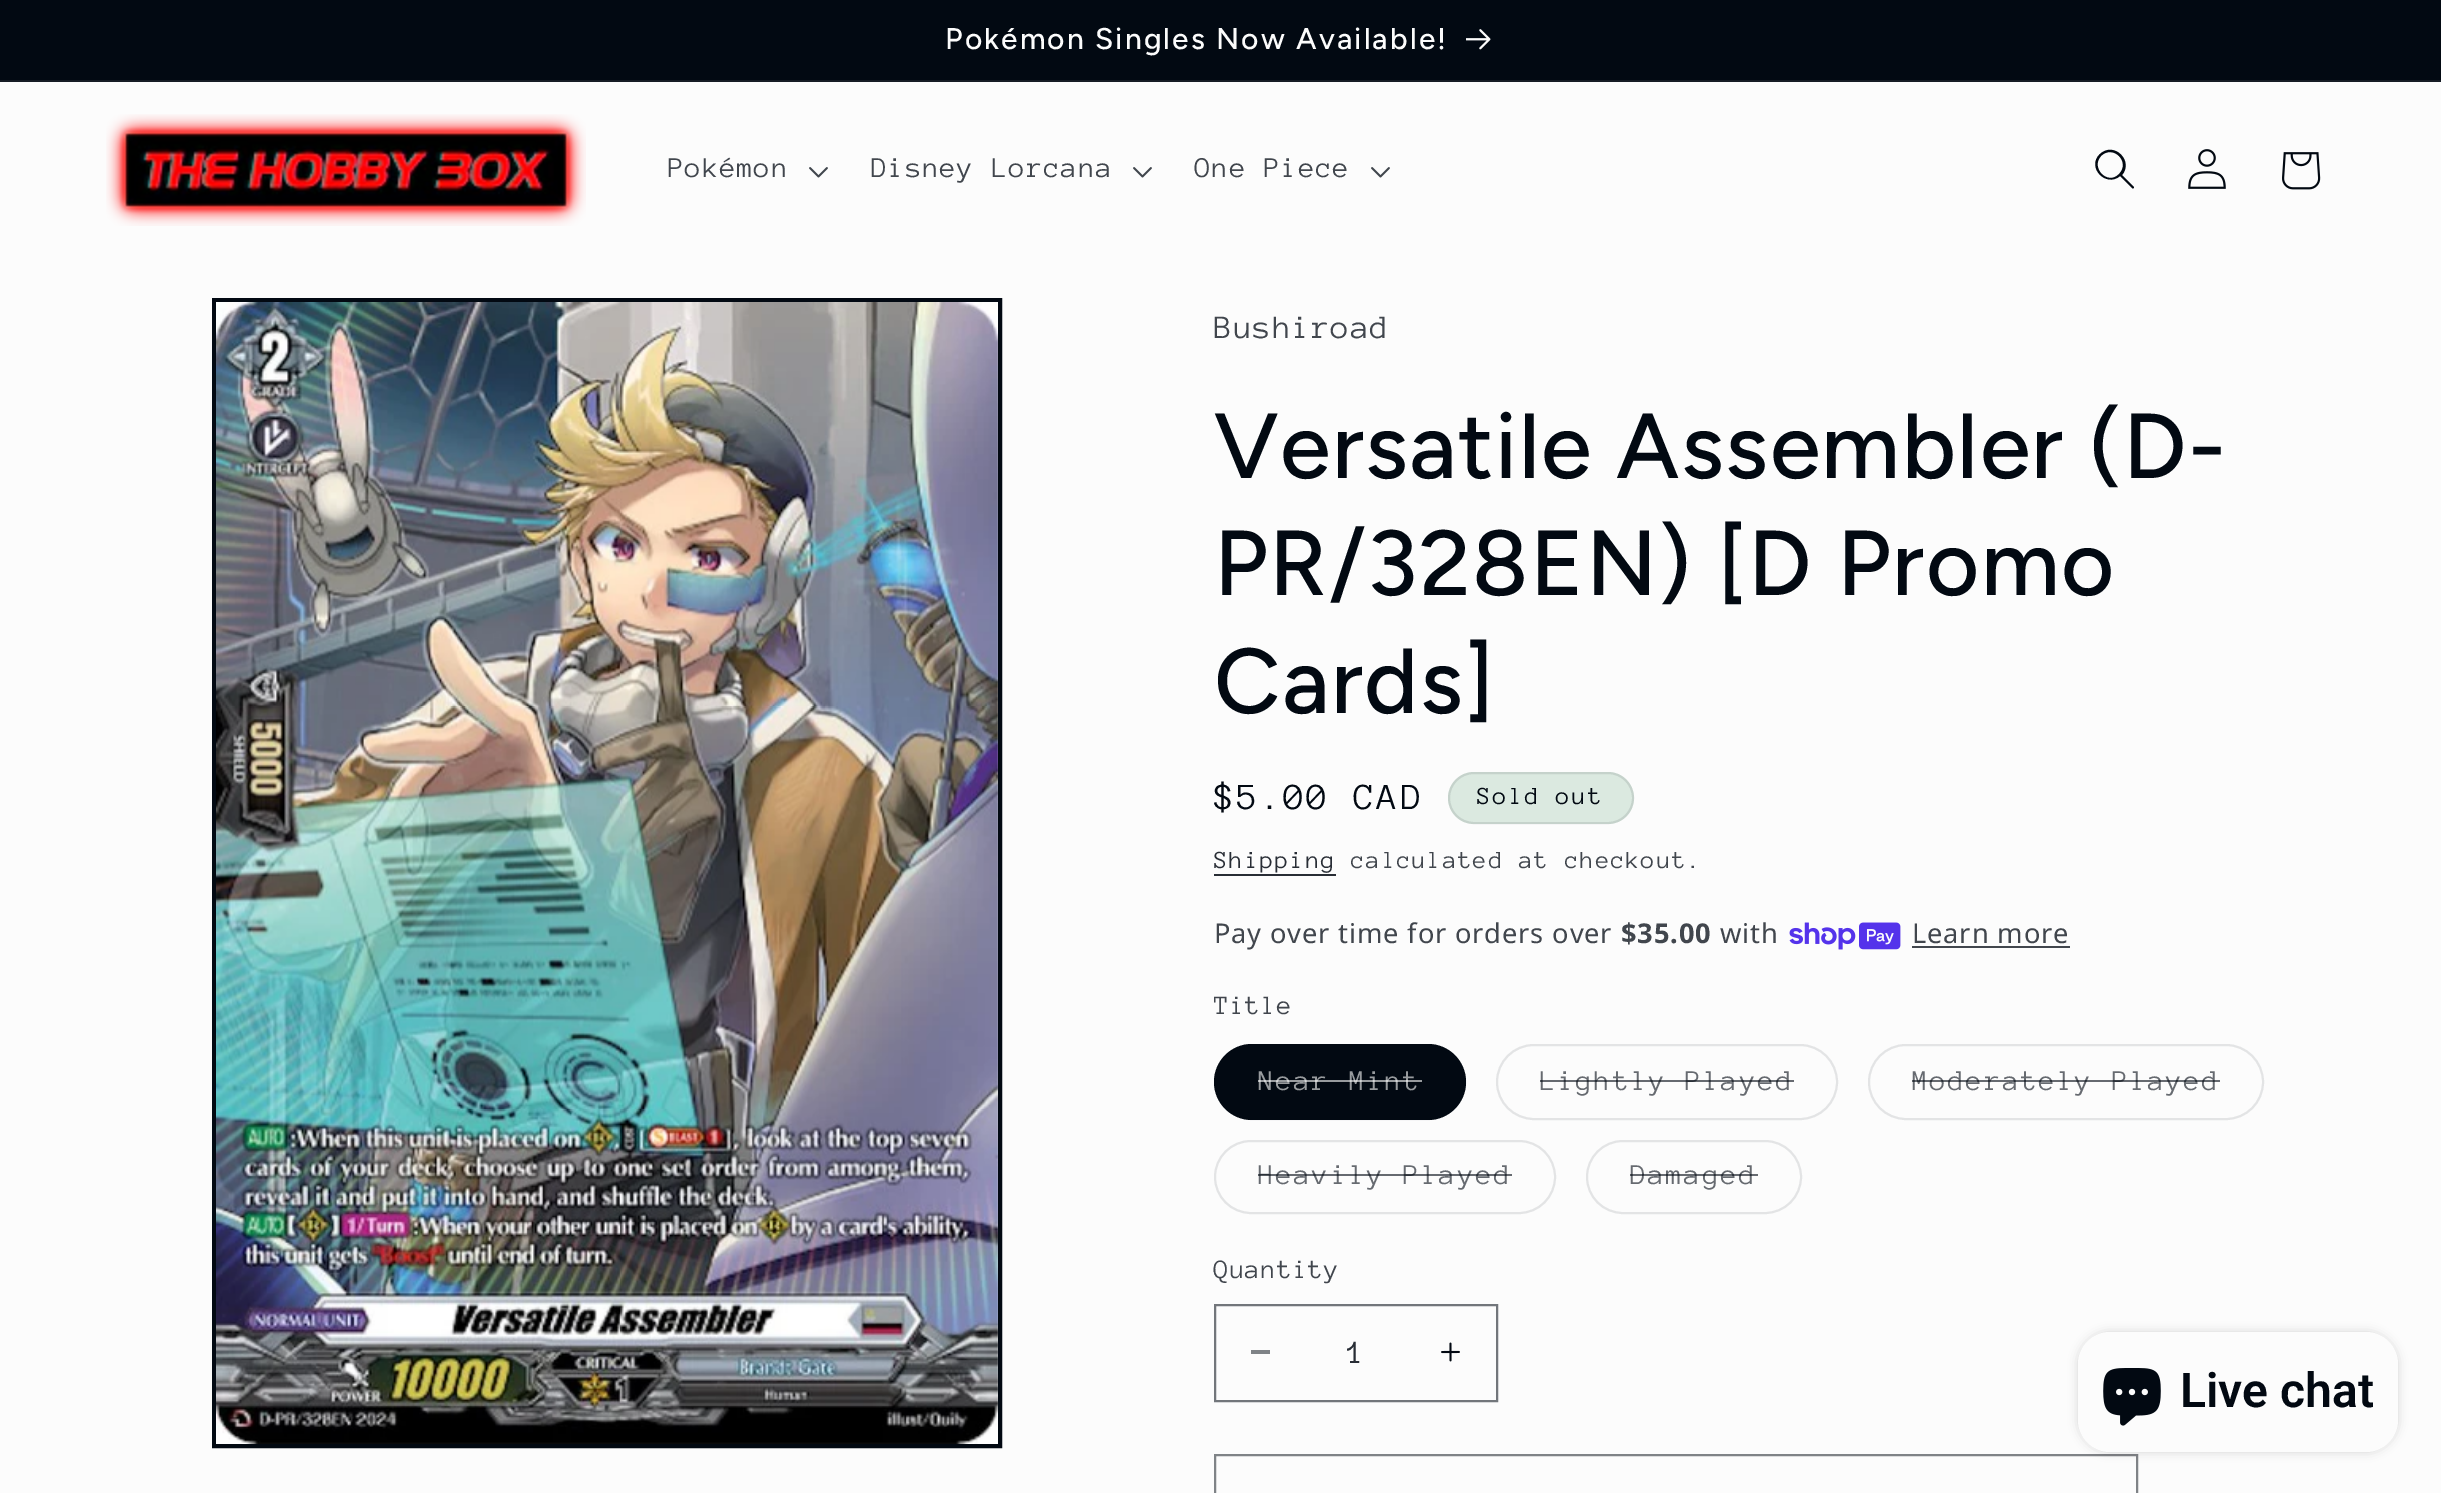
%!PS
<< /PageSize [2441 1493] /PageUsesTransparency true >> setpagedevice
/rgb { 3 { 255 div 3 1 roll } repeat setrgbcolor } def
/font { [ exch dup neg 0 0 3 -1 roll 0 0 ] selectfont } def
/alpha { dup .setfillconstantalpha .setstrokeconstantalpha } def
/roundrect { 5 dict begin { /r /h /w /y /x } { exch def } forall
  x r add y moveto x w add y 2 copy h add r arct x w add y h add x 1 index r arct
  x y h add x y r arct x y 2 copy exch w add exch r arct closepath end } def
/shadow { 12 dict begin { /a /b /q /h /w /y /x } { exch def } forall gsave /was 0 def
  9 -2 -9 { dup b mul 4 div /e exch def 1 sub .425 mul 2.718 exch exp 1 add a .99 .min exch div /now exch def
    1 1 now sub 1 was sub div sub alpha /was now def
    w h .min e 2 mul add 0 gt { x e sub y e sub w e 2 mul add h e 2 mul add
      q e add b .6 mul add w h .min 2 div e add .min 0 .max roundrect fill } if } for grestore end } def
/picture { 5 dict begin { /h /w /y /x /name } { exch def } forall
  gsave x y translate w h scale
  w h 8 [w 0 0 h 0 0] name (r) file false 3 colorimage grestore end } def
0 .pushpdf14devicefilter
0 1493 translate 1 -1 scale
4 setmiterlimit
252 252 252 rgb
0 0 2441 1493 rectfill
2 9 18 rgb
0 0 2441 80 rectfill
22 28 37 rgb
0 80 2441 2 rectfill
(img/1.rgb) 1466 29 25 21 picture
(img/2.rgb) 106 114 480 112 picture
(img/3.rgb) 809 167 19 11 picture
(img/3.rgb) 1133 167 19 11 picture
(img/3.rgb) 1371 167 19 11 picture
2 9 18 rgb
2119 174 moveto 2108 186 2090 168 2101 156 curveto 2113 144 2131 162 2119 174 curveto 2120 176 moveto 2106 188 2086 167 2100 154 curveto 2114 141 2134 161 2122 175 curveto 2134 187 lineto 2134 188 2133 189 2132 188 curveto closepath eofill
(img/4.rgb) 2188 149 38 40 picture
(img/5.rgb) 2282 152 39 38 picture
4 setlinewidth
214 300 786 1146 rectstroke
(img/6.rgb) 216 302 782 1142 picture
219 233 224 rgb
1448 772 186 52 26 roundrect fill
0.1 alpha
2 9 18 rgb
2 setlinewidth
1449 773 184 50 25 roundrect stroke
1 alpha
40 45 53 rgb
1214 874 122 2 rectfill
(img/7.rgb) 1789 922 112 28 picture
65 70 77 rgb
1912 946 158 2 rectfill
2 9 18 rgb
1214 1044 252 76 38 roundrect fill
0.1 alpha
1215 1045 250 74 37 roundrect stroke
1 alpha
227 228 229 rgb
1497 1045 340 74 37 roundrect stroke
1869 1045 394 74 37 roundrect stroke
1215 1141 340 72 36 roundrect stroke
1587 1141 214 72 36 roundrect stroke
127 131 135 rgb
1251 1350 19 4 rectfill
(img/8.rgb) 1441 1342 19 20 picture
114 118 123 rgb
1215 1305 282 96 rectstroke
127 131 135 rgb
1215 1455 922 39 rectstroke
0 0 0 rgb
2078 1332 320 120 32 5 0.15 shadow
252 252 252 rgb
2078 1332 320 120 32 roundrect fill
(img/9.rgb) 2103 1368 58 58 picture
/Figtree-Medium 29.9 font
945 49 moveto 2.1 0 (Pokémon Singles Now Available!) ashow
/AnonymousPro-Regular 29.4 font
65 70 77 rgb
668 177 moveto 1.25 0 (Pokémon) ashow
871 177 moveto 1.25 0 (Disney Lorcana) ashow
1195 177 moveto 1.25 0 (One Piece) ashow
/AnonymousPro-Regular 33.5 font
1214 338 moveto 1.25 0 (Bushiroad) ashow
/Figtree-Medium 92 font
2 9 18 rgb
1214 478 moveto 1.4 0 (Versatile Assembler \(D-) ashow
1214 595 moveto 1.4 0 (PR/328EN\) [D Promo) ashow
1214 713 moveto 1.4 0 (Cards]) ashow
/AnonymousPro-Regular 37.75 font
1214 809 moveto 2.75 0 ($5.00 CAD) ashow
/AnonymousPro-Regular 25.25 font
1477 804 moveto 2.1 0 (Sold out) ashow
40 45 53 rgb
1214 868 moveto 1.5 0 (Shipping) ashow
65 70 77 rgb
1351 868 moveto 1.5 0 (calculated at checkout.) ashow
/NotoSans-Regular 27.25 font
1214 943 moveto 0.85 0 (Pay over time for orders over) ashow
/NotoSans-Bold 27.25 font
1621 943 moveto 0.85 0 ($35.00) ashow
/NotoSans-Regular 27.25 font
1720 943 moveto 0.85 0 (with) ashow
1912 943 moveto 0.85 0 (Learn more) ashow
/AnonymousPro-Regular 27.25 font
1214 1014 moveto 0.85 0 (Title) ashow
/AnonymousPro-Regular 29.4 font
152 155 158 rgb
1258 1090 moveto 2.1 0 (Near Mint) ashow
0.6 alpha
252 252 252 rgb
1258 1080 164 2 rectfill
1 alpha
102 106 112 rgb
1540 1090 moveto 2.1 0 (Lightly Played) ashow
0.6 alpha
2 9 18 rgb
1540 1080 254 2 rectfill
1 alpha
102 106 112 rgb
1912 1090 moveto 2.1 0 (Moderately Played) ashow
0.6 alpha
2 9 18 rgb
1912 1080 308 2 rectfill
1 alpha
102 106 112 rgb
1258 1184 moveto 2.1 0 (Heavily Played) ashow
0.6 alpha
2 9 18 rgb
1258 1174 254 2 rectfill
1 alpha
102 106 112 rgb
1630 1184 moveto 2.1 0 (Damaged) ashow
0.6 alpha
2 9 18 rgb
1630 1174 128 2 rectfill
/AnonymousPro-Regular 27.25 font
1 alpha
65 70 77 rgb
1214 1278 moveto 0.85 0 (Quantity) ashow
/AnonymousPro-Regular 33.5 font
40 45 53 rgb
1347 1363 moveto (1) show
/Roboto-SemiBold 48 font
2 9 18 rgb
2180 1407 moveto (Live chat) show
.poppdf14devicefilter showpage
